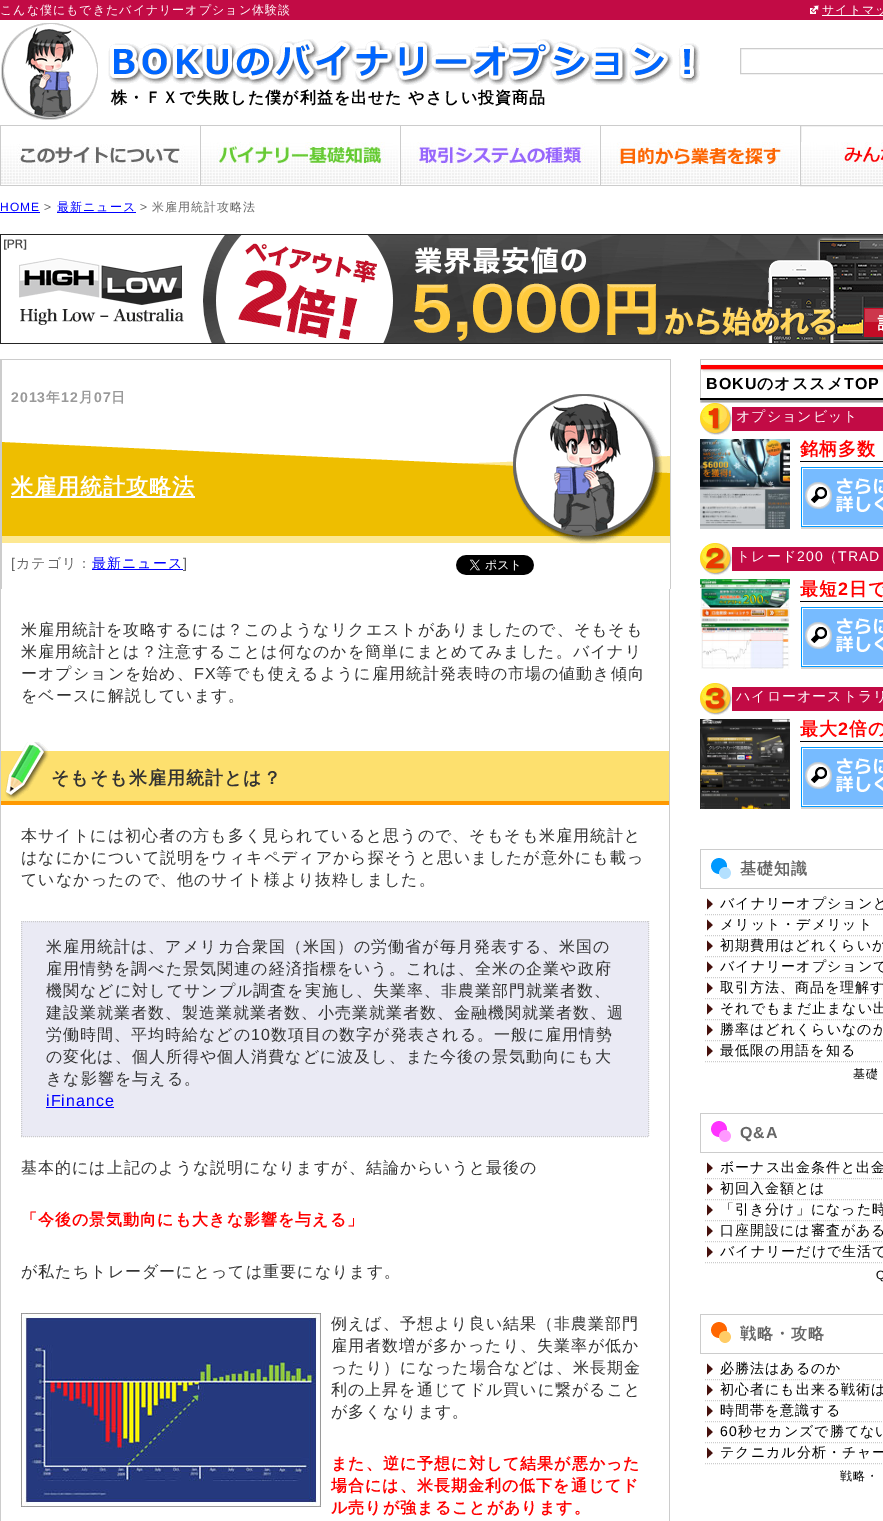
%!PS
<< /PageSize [883 1521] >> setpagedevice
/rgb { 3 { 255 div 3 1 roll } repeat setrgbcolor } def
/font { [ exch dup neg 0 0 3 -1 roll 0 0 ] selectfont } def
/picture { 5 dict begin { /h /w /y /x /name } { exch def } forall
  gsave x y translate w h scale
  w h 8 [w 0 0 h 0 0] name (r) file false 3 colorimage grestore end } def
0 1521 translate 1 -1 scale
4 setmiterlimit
255 255 255 rgb
0 0 883 1521 rectfill
194 11 69 rgb
0 0 883 20 rectfill
(img/1.rgb) 810 5 9 9 picture
255 255 255 rgb
822 15 61 1 rectfill
204 204 204 rgb
740.5 48.5 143 25 rectstroke
(img/2.rgb) 1 23 97 97 picture
(img/3.rgb) 108 39 592 46 picture
[
  [0 125 800 1 204 204 204]
  [0 185 800 1 204 204 204]
  [0 125 1 61 204 204 204]
] { aload pop rgb rectfill } forall
(img/4.rgb) 1 144 198 40 picture
200 125 1 61 rectfill
(img/5.rgb) 201 142 198 42 picture
400 125 1 61 rectfill
(img/6.rgb) 401 142 198 42 picture
600 125 1 61 rectfill
(img/7.rgb) 601 142 198 42 picture
800.5 125.5 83 60 rectstroke
(img/8.rgb) 801 142 82 42 picture
0 0 255 rgb
0 212 40 1 rectfill
57 212 79 1 rectfill
(img/9.rgb) 0 234 883 110 picture
204 204 204 rgb
669 589 1 932 rectfill
0 359 1 1162 rectfill
(img/10.rgb) 1 359 670 230 picture
255 255 255 rgb
11 496 184 2 rectfill
0 0 255 rgb
92 569 91 1 rectfill
(img/11.rgb) 456 555 78 20 picture
(img/12.rgb) 1 742 668 63 picture
234 234 244 rgb
21 921 628 216 rectfill
204 204 204 rgb
[1 1] 0 setdash
21 921.5 moveto 649 921.5 lineto stroke
648.5 921 moveto 648.5 1137 lineto stroke
21 1136.5 moveto 649 1136.5 lineto stroke
21.5 921 moveto 21.5 1137 lineto stroke
0 0 255 rgb
46 1107 68 1 rectfill
(img/13.rgb) 21 1313 300 194 picture
(img/14.rgb) 700 359 183 44 picture
(img/15.rgb) 700 403 183 32 picture
(img/16.rgb) 700 439 90 90 picture
0 0 0 rgb
800 461 83 1 rectfill
(img/17.rgb) 801 467 82 62 picture
(img/18.rgb) 700 543 183 32 picture
(img/19.rgb) 700 579 90 90 picture
800 601 83 1 rectfill
(img/17.rgb) 801 607 82 62 picture
(img/20.rgb) 700 683 183 32 picture
(img/21.rgb) 700 719 90 90 picture
800 741 83 1 rectfill
(img/17.rgb) 801 747 82 62 picture
(img/22.rgb) 700 849 183 40 picture
(img/23.rgb) 707 898 6 12 picture
204 204 204 rgb
705 914.5 moveto 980 914.5 lineto stroke
(img/23.rgb) 707 919 6 12 picture
705 935.5 moveto 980 935.5 lineto stroke
(img/23.rgb) 707 940 6 12 picture
705 956.5 moveto 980 956.5 lineto stroke
(img/23.rgb) 707 961 6 12 picture
705 977.5 moveto 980 977.5 lineto stroke
(img/23.rgb) 707 982 6 12 picture
705 998.5 moveto 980 998.5 lineto stroke
(img/23.rgb) 707 1003 6 12 picture
705 1019.5 moveto 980 1019.5 lineto stroke
(img/23.rgb) 707 1024 6 12 picture
705 1040.5 moveto 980 1040.5 lineto stroke
(img/23.rgb) 707 1045 6 12 picture
705 1061.5 moveto 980 1061.5 lineto stroke
(img/24.rgb) 700 1113 183 40 picture
(img/23.rgb) 707 1162 6 12 picture
705 1178.5 moveto 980 1178.5 lineto stroke
(img/23.rgb) 707 1183 6 12 picture
705 1199.5 moveto 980 1199.5 lineto stroke
(img/23.rgb) 707 1204 6 12 picture
705 1220.5 moveto 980 1220.5 lineto stroke
(img/23.rgb) 707 1225 6 12 picture
705 1241.5 moveto 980 1241.5 lineto stroke
(img/23.rgb) 707 1246 6 12 picture
705 1262.5 moveto 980 1262.5 lineto stroke
(img/25.rgb) 700 1314 183 40 picture
(img/23.rgb) 707 1363 6 12 picture
705 1379.5 moveto 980 1379.5 lineto stroke
(img/23.rgb) 707 1384 6 12 picture
705 1400.5 moveto 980 1400.5 lineto stroke
(img/23.rgb) 707 1405 6 12 picture
705 1421.5 moveto 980 1421.5 lineto stroke
(img/23.rgb) 707 1426 6 12 picture
705 1442.5 moveto 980 1442.5 lineto stroke
(img/23.rgb) 707 1447 6 12 picture
705 1463.5 moveto 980 1463.5 lineto stroke
/WenQuanYiZenHei-Medium 12 font
255 255 255 rgb
0 14 moveto 1 0 (こんな僕にもできたバイナリーオプション体験談) ashow
822 14 moveto 1 0 (サイトマッ) ashow
/WenQuanYiZenHei-Bold 16 font
0 0 0 rgb
111 103 moveto 1 0 (株・ＦＸで失敗した僕が利益を出せた やさしい投資商品) ashow
/LiberationSans-Regular 12 font
0 0 255 rgb
0 211 moveto 1 0 (HOME) ashow
102 102 102 rgb
44 211 moveto 1 0 (>) ashow
/WenQuanYiZenHei-Medium 12 font
0 0 255 rgb
57 211 moveto 1 0 (最新ニュース) ashow
/LiberationSans-Regular 12 font
102 102 102 rgb
140 211 moveto 1 0 (>) ashow
/WenQuanYiZenHei-Medium 12 font
152 211 moveto 1 0 (米雇用統計攻略法) ashow
/LiberationSans-Bold 14 font
153 153 153 rgb
11 402 moveto 1 0 (2013) ashow
/WenQuanYiZenHei-Bold 14 font
46 402 moveto 1 0 (年) ashow
/LiberationSans-Bold 14 font
61 402 moveto 1 0 (12) ashow
/WenQuanYiZenHei-Bold 14 font
79 402 moveto 1 0 (月) ashow
/LiberationSans-Bold 14 font
94 402 moveto 1 0 (07) ashow
/WenQuanYiZenHei-Bold 14 font
111 402 moveto 1 0 (日) ashow
/WenQuanYiZenHei-Bold 22 font
255 255 255 rgb
11 494 moveto 1 0 (米雇用統計攻略法) ashow
/LiberationSans-Regular 14 font
102 102 102 rgb
11 568 moveto 1 0 ([) ashow
/WenQuanYiZenHei-Medium 14 font
16 568 moveto 1 0 (カテゴリ：) ashow
0 0 255 rgb
92 568 moveto 1 0 (最新ニュース) ashow
/LiberationSans-Regular 14 font
102 102 102 rgb
183 568 moveto 1 0 (]) ashow
/WenQuanYiZenHei-Medium 16 font
51 51 51 rgb
21 635 moveto 1 0 (米雇用統計を攻略するには？このようなリクエストがありましたので、そもそも) ashow
21 657 moveto 1 0 (米雇用統計とは？注意することは何なのかを簡単にまとめてみました。バイナリ) ashow
21 679 moveto 1 0 (ーオプションを始め、) ashow
/LiberationSans-Regular 16 font
194 679 moveto 1 0 (FX) ashow
/WenQuanYiZenHei-Medium 16 font
216 679 moveto 1 0 (等でも使えるように雇用統計発表時の市場の値動き傾向) ashow
21 701 moveto 1 0 (をベースに解説しています。) ashow
/WenQuanYiZenHei-Bold 18 font
51 784 moveto 1 0 (そもそも米雇用統計とは？) ashow
/WenQuanYiZenHei-Medium 16 font
21 841 moveto 1 0 (本サイトには初心者の方も多く見られていると思うので、そもそも米雇用統計と) ashow
21 863 moveto 1 0 (はなにかについて説明をウィキペディアから探そうと思いましたが意外にも載っ) ashow
21 885 moveto 1 0 (ていなかったので、他のサイト様より抜粋しました。) ashow
46 952 moveto 1 0 (米雇用統計は、アメリカ合衆国（米国）の労働省が毎月発表する、米国の) ashow
46 974 moveto 1 0 (雇用情勢を調べた景気関連の経済指標をいう。これは、全米の企業や政府) ashow
46 996 moveto 1 0 (機関などに対してサンプル調査を実施し、失業率、非農業部門就業者数、) ashow
46 1018 moveto 1 0 (建設業就業者数、製造業就業者数、小売業就業者数、金融機関就業者数、週) ashow
46 1040 moveto 1 0 (労働時間、平均時給などの) ashow
/LiberationSans-Regular 16 font
251 1040 moveto 1 0 (10) ashow
/WenQuanYiZenHei-Medium 16 font
271 1040 moveto 1 0 (数項目の数字が発表される。一般に雇用情勢) ashow
46 1062 moveto 1 0 (の変化は、個人所得や個人消費などに波及し、また今後の景気動向にも大) ashow
46 1084 moveto 1 0 (きな影響を与える。) ashow
/LiberationSans-Regular 16 font
0 0 255 rgb
46 1106 moveto 1 0 (iFinance) ashow
/WenQuanYiZenHei-Medium 16 font
51 51 51 rgb
21 1173 moveto 1 0 (基本的には上記のような説明になりますが、結論からいうと最後の) ashow
/WenQuanYiZenHei-Bold 16 font
255 0 0 rgb
21 1225 moveto 1 0 (「今後の景気動向にも大きな影響を与える」) ashow
/WenQuanYiZenHei-Medium 16 font
51 51 51 rgb
21 1277 moveto 1 0 (が私たちトレーダーにとっては重要になります。) ashow
331 1329 moveto 1 0 (例えば、予想より良い結果（非農業部門) ashow
331 1351 moveto 1 0 (雇用者数増が多かったり、失業率が低か) ashow
331 1373 moveto 1 0 (ったり）になった場合などは、米長期金) ashow
331 1395 moveto 1 0 (利の上昇を通じてドル買いに繋がること) ashow
331 1417 moveto 1 0 (が多くなります。) ashow
/WenQuanYiZenHei-Bold 16 font
255 0 0 rgb
331 1469 moveto 1 0 (また、逆に予想に対して結果が悪かった) ashow
331 1491 moveto 1 0 (場合には、米長期金利の低下を通じてド) ashow
331 1513 moveto 1 0 (ル売りが強まることがあります。) ashow
/LiberationSans-Bold 16 font
0 0 0 rgb
706 389 moveto 1 0 (BOKU) ashow
/WenQuanYiZenHei-Bold 16 font
757 389 moveto 1 0 (のオススメ) ashow
/LiberationSans-Bold 16 font
844 389 moveto 1 0 (TOP) ashow
/WenQuanYiZenHei-Medium 14 font
255 255 255 rgb
736 421 moveto 1 0 (オプションビット) ashow
/WenQuanYiZenHei-Bold 18 font
255 0 0 rgb
800 455 moveto 1 0 (銘柄多数) ashow
/WenQuanYiZenHei-Medium 14 font
255 255 255 rgb
736 561 moveto 1 0 (トレード) ashow
/LiberationSans-Regular 14 font
797 561 moveto 1 0 (200) ashow
/WenQuanYiZenHei-Medium 14 font
823 561 moveto 1 0 (（) ashow
/LiberationSans-Regular 14 font
838 561 moveto 1 0 (TRAD) ashow
/WenQuanYiZenHei-Bold 18 font
255 0 0 rgb
800 595 moveto 1 0 (最短) ashow
/LiberationSans-Bold 18 font
838 595 moveto 1 0 (2) ashow
/WenQuanYiZenHei-Bold 18 font
849 595 moveto 1 0 (日で) ashow
/WenQuanYiZenHei-Medium 14 font
255 255 255 rgb
736 701 moveto 1 0 (ハイローオーストラリ) ashow
/WenQuanYiZenHei-Bold 18 font
255 0 0 rgb
800 735 moveto 1 0 (最大) ashow
/LiberationSans-Bold 18 font
838 735 moveto 1 0 (2) ashow
/WenQuanYiZenHei-Bold 18 font
849 735 moveto 1 0 (倍の) ashow
/WenQuanYiZenHei-Bold 16 font
102 102 102 rgb
740 874 moveto 1 0 (基礎知識) ashow
/WenQuanYiZenHei-Medium 14 font
0 0 0 rgb
720 908 moveto 1 0 (バイナリーオプションと) ashow
720 929 moveto 1 0 (メリット・デメリット) ashow
720 950 moveto 1 0 (初期費用はどれくらいか) ashow
720 971 moveto 1 0 (バイナリーオプションで) ashow
720 992 moveto 1 0 (取引方法、商品を理解す) ashow
720 1013 moveto 1 0 (それでもまだ止まない出) ashow
720 1034 moveto 1 0 (勝率はどれくらいなのか) ashow
720 1055 moveto 1 0 (最低限の用語を知る) ashow
/WenQuanYiZenHei-Medium 12 font
853 1078 moveto 1 0 (基礎) ashow
/LiberationSans-Bold 16 font
102 102 102 rgb
740 1138 moveto 1 0 (Q&A) ashow
/WenQuanYiZenHei-Medium 14 font
0 0 0 rgb
720 1172 moveto 1 0 (ボーナス出金条件と出金) ashow
720 1193 moveto 1 0 (初回入金額とは) ashow
720 1214 moveto 1 0 (「引き分け」になった時) ashow
720 1235 moveto 1 0 (口座開設には審査がある) ashow
720 1256 moveto 1 0 (バイナリーだけで生活で) ashow
/LiberationSans-Regular 12 font
876 1279 moveto 1 0 (Q) ashow
/WenQuanYiZenHei-Bold 16 font
102 102 102 rgb
740 1339 moveto 1 0 (戦略・攻略) ashow
/WenQuanYiZenHei-Medium 14 font
0 0 0 rgb
720 1373 moveto 1 0 (必勝法はあるのか) ashow
720 1394 moveto 1 0 (初心者にも出来る戦術は) ashow
720 1415 moveto 1 0 (時間帯を意識する) ashow
/LiberationSans-Regular 14 font
720 1436 moveto 1 0 (60) ashow
/WenQuanYiZenHei-Medium 14 font
738 1436 moveto 1 0 (秒セカンズで勝てない) ashow
720 1457 moveto 1 0 (テクニカル分析・チャー) ashow
/WenQuanYiZenHei-Medium 12 font
840 1480 moveto 1 0 (戦略・) ashow
showpage
